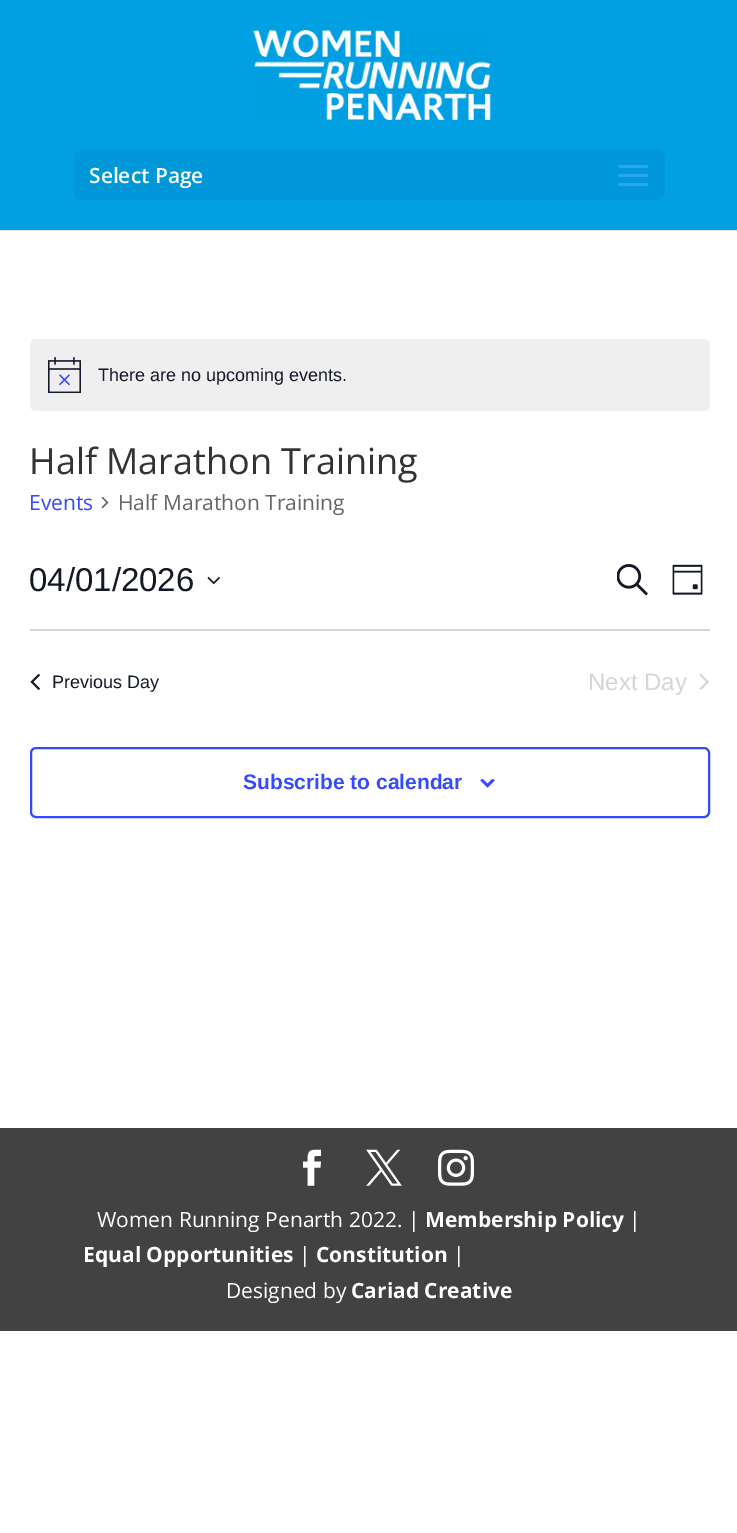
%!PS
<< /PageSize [737 1533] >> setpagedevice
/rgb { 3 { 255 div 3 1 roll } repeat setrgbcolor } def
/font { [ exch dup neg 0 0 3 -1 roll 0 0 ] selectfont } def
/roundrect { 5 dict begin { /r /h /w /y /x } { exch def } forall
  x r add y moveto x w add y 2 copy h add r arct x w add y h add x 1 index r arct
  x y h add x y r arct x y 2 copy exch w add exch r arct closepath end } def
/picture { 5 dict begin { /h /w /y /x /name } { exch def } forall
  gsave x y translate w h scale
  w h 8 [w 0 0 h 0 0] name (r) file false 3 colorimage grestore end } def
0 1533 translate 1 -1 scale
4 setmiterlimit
255 255 255 rgb
0 0 737 1533 rectfill
230 230 230 rgb
0 230 737 1 rectfill
0 160 227 rgb
0 0 737 230 rectfill
(img/1.rgb) 253 30 238 90 picture
0 152 216 rgb
74 150 591 50 8 roundrect fill
(img/2.rgb) 618 165 30 21 picture
239 239 240 rgb
30 339 680 72 6 roundrect fill
(img/3.rgb) 48 357 33 36 picture
(img/4.rgb) 101 497 8 12 picture
(img/5.rgb) 207 576 13 9 picture
(img/6.rgb) 617 564 31 32 picture
(img/7.rgb) 672 564 31 31 picture
213 213 213 rgb
30 629 680 2 rectfill
(img/8.rgb) 30 674 11 17 picture
(img/9.rgb) 699 674 10 16 picture
51 74 255 rgb
2 setlinewidth
31 748 678 69 5 roundrect stroke
(img/10.rgb) 480 779 15 9 picture
66 66 66 rgb
0 1128 737 203 rectfill
(img/11.rgb) 303 1149 19 37 picture
(img/12.rgb) 366 1149 36 37 picture
(img/13.rgb) 438 1149 36 37 picture
/OpenSans-SemiBold 21 font
255 255 255 rgb
89 183 moveto (Select Page) show
/LiberationSans-Regular 18 font
20 24 39 rgb
98 381 moveto (There are no upcoming events.) show
/OpenSans-Regular 36 font
51 51 51 rgb
29 474 moveto (Half Marathon Training) show
/OpenSans-Regular 21 font
51 74 255 rgb
29 510 moveto (Events) show
102 102 102 rgb
118 510 moveto (Half Marathon Training) show
/LiberationSans-Regular 33 font
20 24 39 rgb
29 591 moveto (04/01/2026) show
/LiberationSans-Regular 18 font
52 688 moveto (Previous Day) show
/LiberationSans-Regular 24 font
213 213 213 rgb
588 690 moveto (Next Day) show
/LiberationSans-Bold 21 font
51 74 255 rgb
243 789 moveto (Subscribe to calendar) show
/OpenSans-Regular 21 font
255 255 255 rgb
97 1227 moveto (Women Running Penarth 2022. |) show
/OpenSans-Bold 21 font
425 1227 moveto (Membership Policy) show
/OpenSans-Regular 21 font
629 1227 moveto (|) show
/OpenSans-Bold 21 font
83 1262 moveto (Equal Opportunities) show
/OpenSans-Regular 21 font
299 1262 moveto (|) show
/OpenSans-Bold 21 font
316 1262 moveto (Constitution) show
/OpenSans-Regular 21 font
453 1262 moveto (|) show
226 1298 moveto (Designed by) show
/OpenSans-Bold 21 font
351 1298 moveto (Cariad Creative) show
showpage
